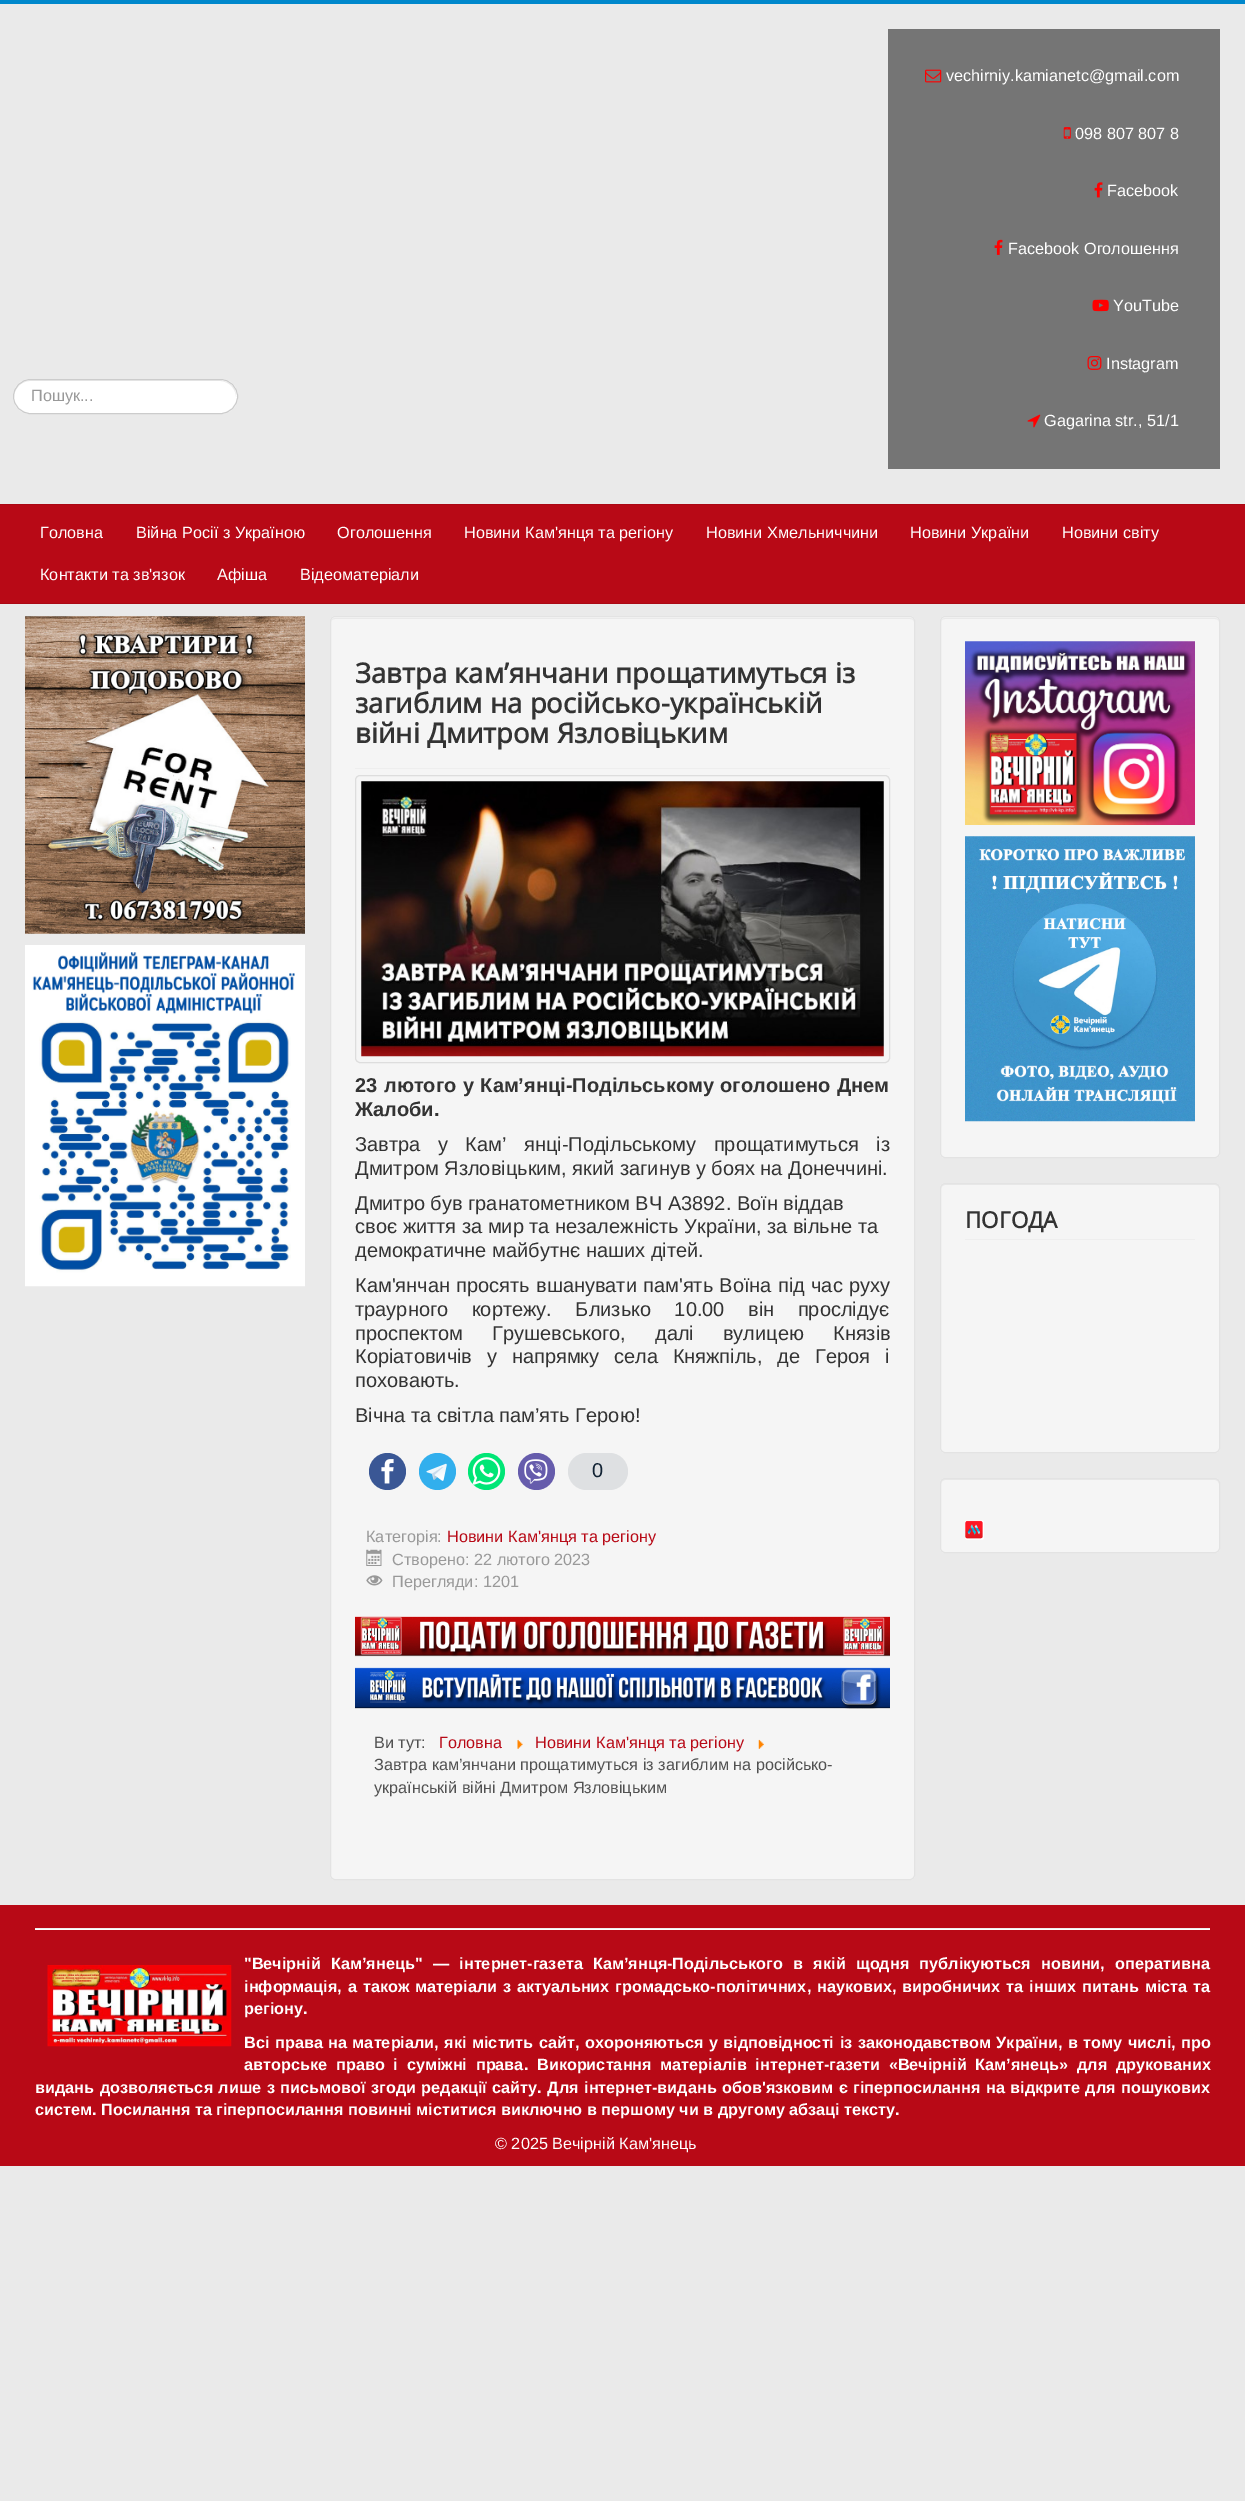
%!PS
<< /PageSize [1245 2501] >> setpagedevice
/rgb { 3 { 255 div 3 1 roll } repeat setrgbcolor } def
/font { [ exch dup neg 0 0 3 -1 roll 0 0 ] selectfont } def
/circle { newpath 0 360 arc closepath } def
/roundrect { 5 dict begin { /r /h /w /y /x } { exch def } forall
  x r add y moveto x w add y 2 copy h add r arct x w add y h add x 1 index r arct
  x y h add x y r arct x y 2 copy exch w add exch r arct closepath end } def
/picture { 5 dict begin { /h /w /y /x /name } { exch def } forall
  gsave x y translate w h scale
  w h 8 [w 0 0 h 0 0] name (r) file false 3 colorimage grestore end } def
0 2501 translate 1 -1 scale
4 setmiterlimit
234 234 234 rgb
0 0 1245 2501 rectfill
0 136 204 rgb
0 0 1245 4 rectfill
255 255 255 rgb
13 379 225 35 17.5 roundrect fill
236 236 236 rgb
30 381 moveto 220 381 lineto 229 381 236 389 236 397 curveto 237 373 200 380 188 380 curveto 62 380 lineto 50 380 13 373 14 397 curveto 14 389 21 381 30 381 curveto closepath fill
204 204 204 rgb
13.5 379.5 224 34 17 roundrect stroke
117 117 117 rgb
888 29 332 440 rectfill
(img/1.rgb) 925 69 17 14 picture
(img/2.rgb) 1063 127 8 12 picture
(img/3.rgb) 1094 182 9 16 picture
(img/4.rgb) 994 239 9 16 picture
(img/5.rgb) 1092 299 17 13 picture
(img/6.rgb) 1087 356 15 14 picture
(img/7.rgb) 1027 414 14 14 picture
[
  [0 505 1245 98 184 9 22]
  [0 504 1245 1 170 8 20]
  [0 603 1245 1 170 8 20]
] { aload pop rgb rectfill } forall
(img/8.rgb) 25 616 280 318 picture
(img/9.rgb) 25 945 280 342 picture
245 245 245 rgb
330 616 585 1264 5 roundrect fill
233 233 233 rgb
335 619 moveto 910 619 lineto 912 619 914 620 914 622 curveto 914 620 912 618 910 618 curveto 335 618 lineto 333 618 331 620 331 622 curveto 331 620 333 619 335 619 curveto closepath fill
227 227 227 rgb
330.5 616.5 584 1263 4.5 roundrect stroke
238 238 238 rgb
355 768 535 1 rectfill
221 221 221 rgb
355.5 775.5 534 287 4.5 roundrect stroke
(img/10.rgb) 361 781 523 276 picture
58 87 149 rgb
387.5 1471.5 18.5 circle fill
(img/11.rgb) 381 1459 13 25 picture
50 175 237 rgb
437.5 1471.5 18.5 circle fill
(img/12.rgb) 426 1463 21 18 picture
0 230 118 rgb
486.5 1471.5 18.5 circle fill
(img/13.rgb) 472 1457 29 28 picture
102 92 172 rgb
536.5 1471.5 18.5 circle fill
(img/14.rgb) 524 1459 24 25 picture
222 224 226 rgb
568 1453 60 37 18.5 roundrect fill
(img/15.rgb) 366 1549 16 17 picture
(img/16.rgb) 366 1575 17 11 picture
(img/17.rgb) 355 1616 535 41 picture
(img/18.rgb) 355 1667 535 42 picture
(img/19.rgb) 517 1739 6 10 picture
(img/20.rgb) 758 1739 6 10 picture
245 245 245 rgb
940 616 280 542 5 roundrect fill
233 233 233 rgb
945 619 moveto 1215 619 lineto 1217 619 1219 620 1219 622 curveto 1219 620 1217 618 1215 618 curveto 945 618 lineto 943 618 941 620 941 622 curveto 941 620 943 619 945 619 curveto closepath fill
227 227 227 rgb
940.5 616.5 279 541 4.5 roundrect stroke
(img/21.rgb) 965 641 230 184 picture
(img/22.rgb) 965 836 230 286 picture
245 245 245 rgb
940 1183 280 270 5 roundrect fill
233 233 233 rgb
945 1185 moveto 1215 1185 lineto 1217 1185 1219 1187 1219 1189 curveto 1219 1186 1218 1184 1215 1184 curveto 945 1184 lineto 942 1184 941 1186 941 1189 curveto 941 1187 943 1185 945 1185 curveto closepath fill
227 227 227 rgb
940.5 1183.5 279 269 4.5 roundrect stroke
238 238 238 rgb
965 1239 230 1 rectfill
245 245 245 rgb
940 1478 280 75 5 roundrect fill
233 233 233 rgb
945 1480 moveto 1215 1480 lineto 1217 1480 1219 1482 1219 1484 curveto 1219 1481 1218 1479 1215 1479 curveto 945 1479 lineto 942 1479 941 1481 941 1484 curveto 941 1482 943 1480 945 1480 curveto closepath fill
227 227 227 rgb
940.5 1478.5 279 74 4.5 roundrect stroke
255 255 255 rgb
965 1520 19 20 2.5 roundrect fill
(img/23.rgb) 965 1520 18 19 picture
[
  [0 1905 1245 261 184 9 22]
  [35 1928 1175 1 238 238 238]
  [35 1929 1175 1 255 255 255]
] { aload pop rgb rectfill } forall
(img/24.rgb) 47 1965 185 82 picture
/LiberationSans-Regular 16.25 font
153 153 153 rgb
31 401 moveto (Пошук...) show
255 255 255 rgb
[
  [(vechirniy.kamianetc@gmail.com) 946 81]
  [(098 807 807 8) 1075 139]
  [(Facebook) 1107 196]
  [(Facebook Оголошення) 1008 254]
  [(YouTube) 1113 311]
  [(Instagram) 1106 369]
  [(Gagarina str., 51/1) 1044 426]
  [(Головна) 40 538]
  [(Війна Росії з Україною) 136 538]
  [(Оголошення) 337 538]
  [(Новини Кам'янця та регіону) 464 538]
  [(Новини Хмельниччини) 706 538]
  [(Новини України) 910 538]
  [(Новини світу) 1062 538]
  [(Контакти та зв'язок) 40 580]
  [(Афіша) 217 580]
  [(Відеоматеріали) 300 580]
] { aload pop moveto show } forall
/OpenSans-Bold 27.5 font
51 51 51 rgb
[
  [(Завтра кам’янчани прощатимуться із) 355 683]
  [(загиблим на російсько-українській) 355 713]
  [(війні Дмитром Язловіцьким) 355 743]
] { aload pop moveto show } forall
/LiberationSans-Bold 20 font
355 1092 moveto 1 0 32 (23 лютого у Кам’янці-Подільському оголошено Днем) widthshow
355 1116 moveto (Жалоби.) show
/LiberationSans-Regular 20 font
355 1151 moveto 12 0 32 (Завтра у Кам’ янці-Подільському прощатимуться із) widthshow
[
  [(Дмитром Язловіцьким, який загинув у боях на Донеччині.) 355 1175]
  [(Дмитро був гранатометником ВЧ А3892. Воїн віддав) 355 1210]
  [(своє життя за мир та незалежність України, за вільне та) 355 1233]
  [(демократичне майбутнє наших дітей.) 355 1257]
] { aload pop moveto show } forall
355 1292 moveto 0.75 0 32 (Кам'янчан просять вшанувати пам'ять Воїна під час руху) widthshow
355 1316 moveto 18 0 32 (траурного кортежу. Близько 10.00 він прослідує) widthshow
355 1340 moveto 23.5 0 32 (проспектом Грушевського, далі вулицею Князів) widthshow
355 1363 moveto 9.25 0 32 (Коріатовичів у напрямку села Княжпіль, де Героя і) widthshow
355 1387 moveto (поховають.) show
355 1422 moveto (Вічна та світла пам’ять Герою!) show
18 35 52 rgb
592 1477 moveto (0) show
/LiberationSans-Regular 16.25 font
153 153 153 rgb
366 1542 moveto (Категорія:) show
184 9 22 rgb
447 1542 moveto (Новини Кам'янця та регіону) show
153 153 153 rgb
392 1565 moveto (Створено: 22 лютого 2023) show
392 1587 moveto (Перегляди: 1201) show
81 81 81 rgb
374 1748 moveto (Ви тут:) show
184 9 22 rgb
439 1748 moveto (Головна) show
535 1748 moveto (Новини Кам'янця та регіону) show
81 81 81 rgb
374 1770 moveto (Завтра кам’янчани прощатимуться із загиблим на російсько-) show
374 1793 moveto (українській війні Дмитром Язловіцьким) show
/OpenSans-Bold 22.5 font
51 51 51 rgb
965 1228 moveto (ПОГОДА) show
/LiberationSans-Bold 16.25 font
255 255 255 rgb
244 1969 moveto 5.75 0 32 ("Вечірній Кам’янець" — інтернет-газета Кам’янця-Подільського в якій щодня публікуються новини, оперативна) widthshow
244 1992 moveto 1.4 0 32 (інформація, а також матеріали з актуальних громадсько-політичних, наукових, виробничих та інших питань міста та) widthshow
244 2014 moveto (регіону.) show
244 2048 moveto 1 0 32 (Всі права на матеріали, які містить cайт, охороняються у відповідності із законодавством України, в тому числі, про) widthshow
244 2070 moveto 4.25 0 32 (авторське право і суміжні права. Використання матерiалiв інтернет-газети «Вечірній Кам’янець» для друкованих) widthshow
35 2093 moveto 0.9 0 32 (видань дозволяється лише з письмової згоди редакції сайту. Для iнтернет-видань обов'язковим є гiперпосилання на відкрите для пошукових) widthshow
35 2115 moveto (систем. Посилання та гіперпосилання повинні міститися виключно в першому чи в другому абзаці тексту.) show
/LiberationSans-Regular 16.25 font
495 2149 moveto (© 2025 Вечірній Кам'янець) show
showpage
